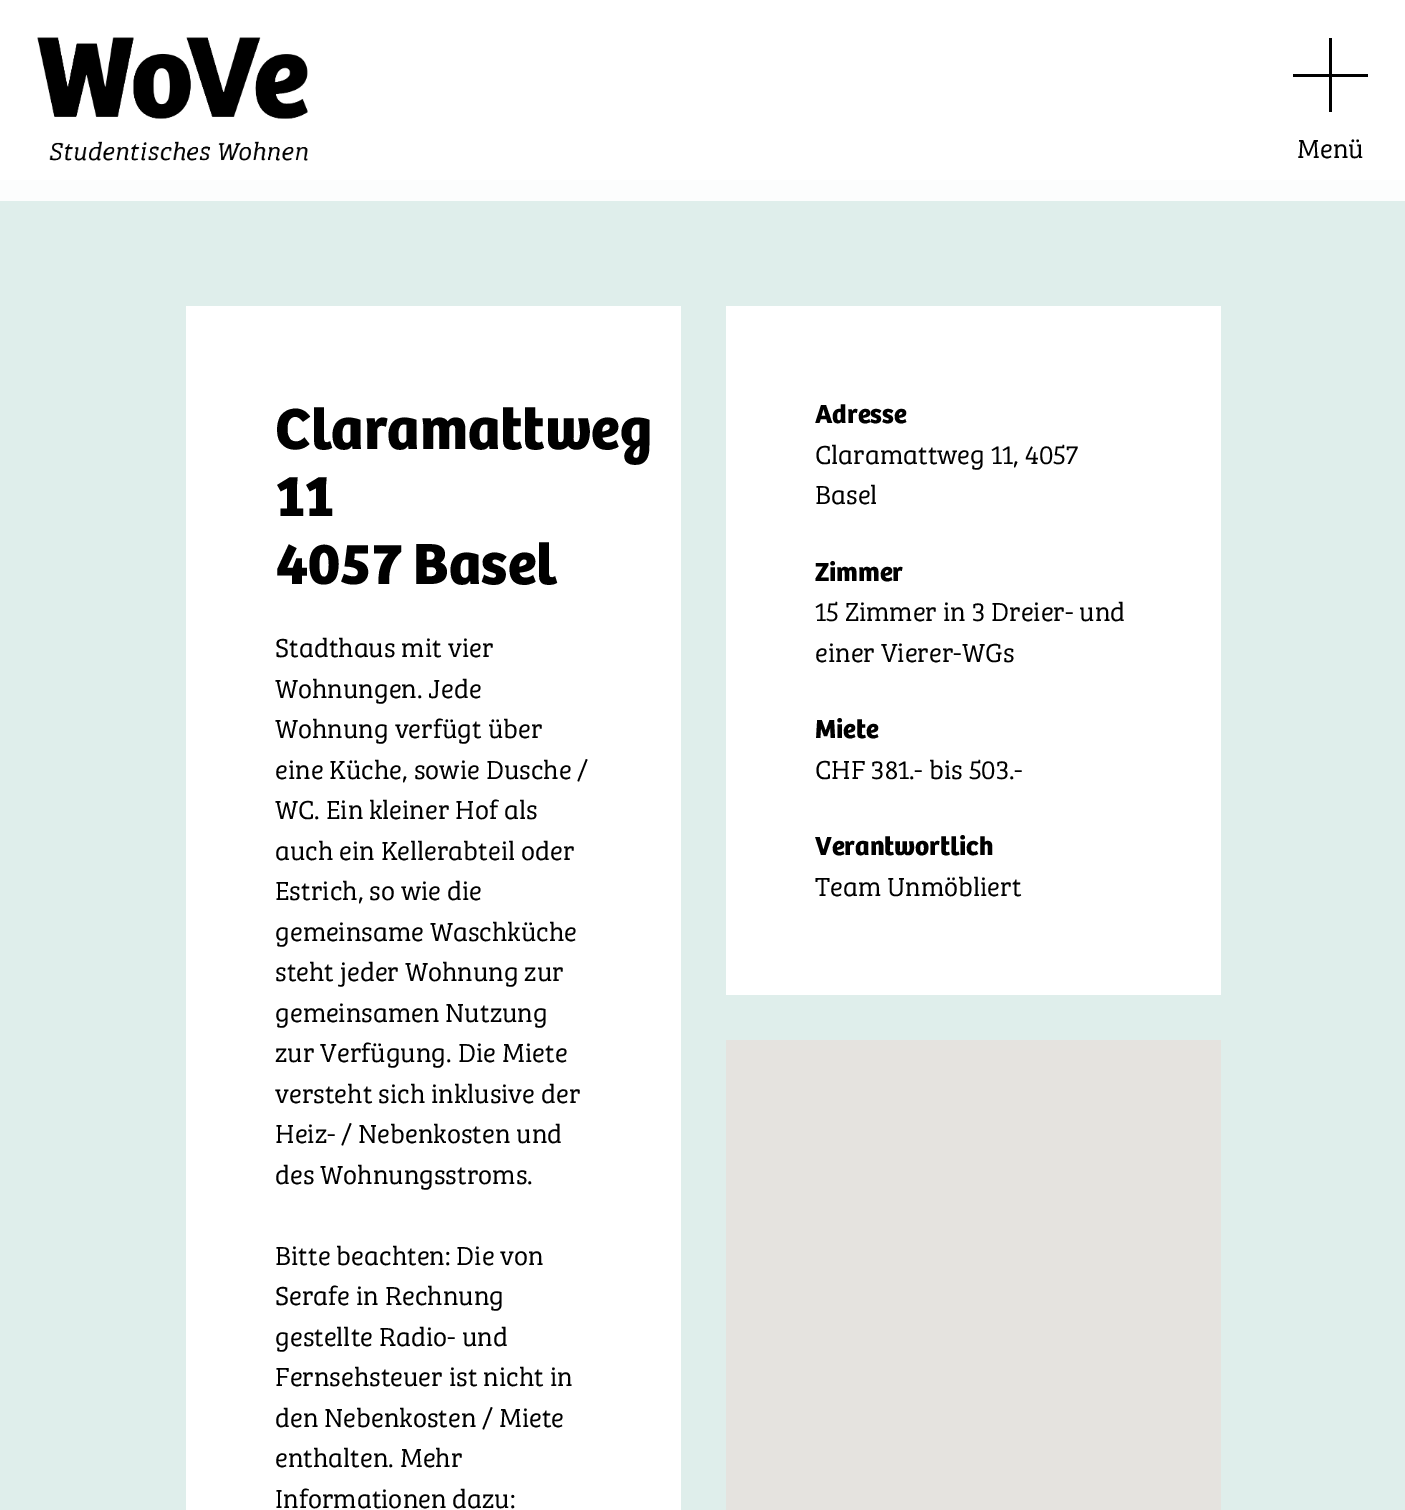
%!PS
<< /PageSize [1405 1510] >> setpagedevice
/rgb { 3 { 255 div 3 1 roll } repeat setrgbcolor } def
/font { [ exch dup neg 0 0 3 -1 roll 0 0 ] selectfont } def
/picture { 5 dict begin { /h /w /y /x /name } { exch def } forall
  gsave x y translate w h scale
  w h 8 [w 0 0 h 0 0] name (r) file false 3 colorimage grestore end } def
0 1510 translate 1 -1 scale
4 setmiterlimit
255 255 255 rgb
0 0 1405 1510 rectfill
(img/1.rgb) 37 37 271 124 picture
[
  [1293 74 75 3 0 0 0]
  [1329 38 3 74 0 0 0]
  [0 201 1405 1309 223 238 235]
  [0 180 1405 21 252 253 253]
  [186 306 495 1204 255 255 255]
  [726 306 495 689 255 255 255]
  [726 1040 495 470 229 227 223]
] { aload pop rgb rectfill } forall
/BreeSerif-Light 27 font
0 0 0 rgb
1297 158 moveto (Menü) show
/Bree-Bold 60 font
[
  [(Claramattweg) 275 449]
  [(11) 275 516]
  [(4057 Basel) 275 584]
] { aload pop moveto show } forall
/BreeSerif-Light 27 font
[
  [(Stadthaus mit vier) 275 657]
  [(Wohnungen. Jede) 275 698]
  [(Wohnung verfügt über) 275 738]
  [(eine Küche, sowie Dusche /) 275 779]
  [(WC. Ein kleiner Hof als) 275 819]
  [(auch ein Kellerabteil oder) 275 860]
  [(Estrich, so wie die) 275 900]
  [(gemeinsame Waschküche) 275 941]
  [(steht jeder Wohnung zur) 275 981]
  [(gemeinsamen Nutzung) 275 1022]
  [(zur Verfügung. Die Miete) 275 1062]
  [(versteht sich inklusive der) 275 1103]
  [(Heiz- / Nebenkosten und) 275 1143]
  [(des Wohnungsstroms.) 275 1184]
  [(Bitte beachten: Die von) 275 1265]
  [(Serafe in Rechnung) 275 1305]
  [(gestellte Radio- und) 275 1346]
  [(Fernsehsteuer ist nicht in) 275 1386]
  [(den Nebenkosten / Miete) 275 1427]
  [(enthalten. Mehr) 275 1467]
  [(Informationen dazu:) 275 1508]
] { aload pop moveto show } forall
/Bree-Bold 27 font
815 423 moveto (Adresse) show
/BreeSerif-Light 27 font
815 464 moveto (Claramattweg 11, 4057) show
815 504 moveto (Basel) show
/Bree-Bold 27 font
815 581 moveto (Zimmer) show
/BreeSerif-Light 27 font
815 621 moveto (15 Zimmer in 3 Dreier- und) show
815 662 moveto (einer Vierer-WGs) show
/Bree-Bold 27 font
815 738 moveto (Miete) show
/BreeSerif-Light 27 font
815 779 moveto (CHF 381.- bis 503.-) show
/Bree-Bold 27 font
815 855 moveto (Verantwortlich) show
/BreeSerif-Light 27 font
815 896 moveto (Team Unmöbliert) show
showpage
